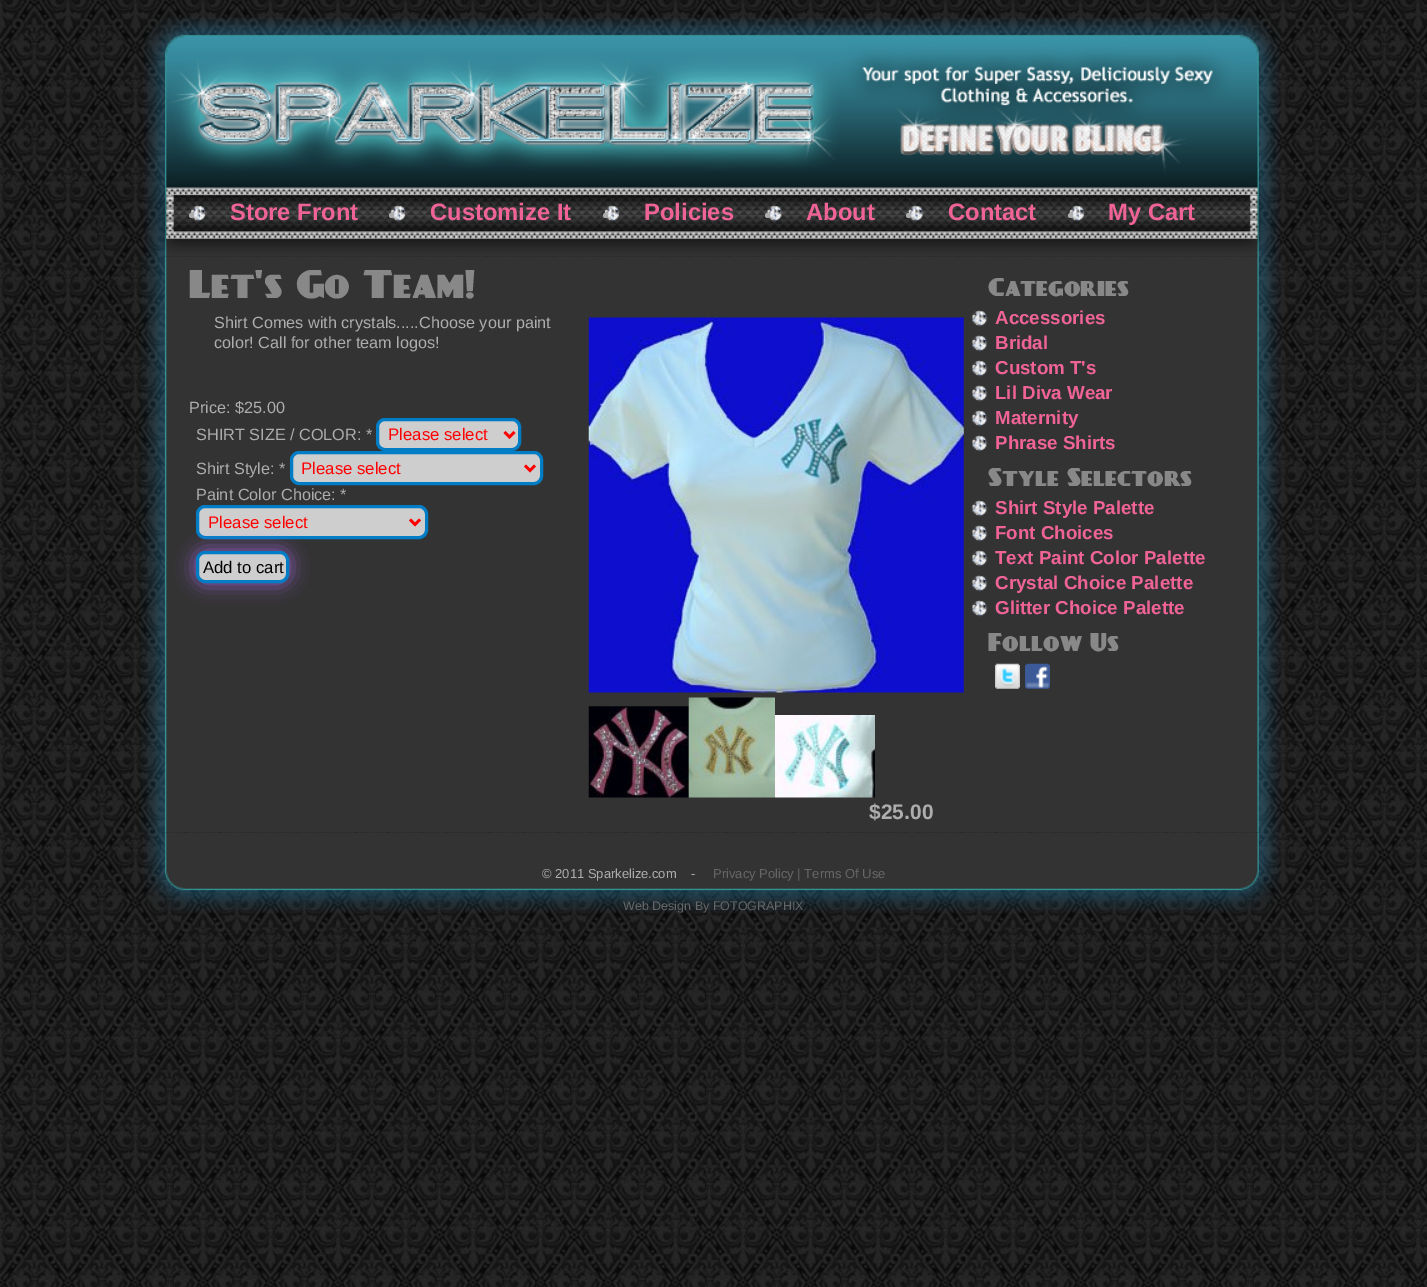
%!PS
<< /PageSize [1427 1287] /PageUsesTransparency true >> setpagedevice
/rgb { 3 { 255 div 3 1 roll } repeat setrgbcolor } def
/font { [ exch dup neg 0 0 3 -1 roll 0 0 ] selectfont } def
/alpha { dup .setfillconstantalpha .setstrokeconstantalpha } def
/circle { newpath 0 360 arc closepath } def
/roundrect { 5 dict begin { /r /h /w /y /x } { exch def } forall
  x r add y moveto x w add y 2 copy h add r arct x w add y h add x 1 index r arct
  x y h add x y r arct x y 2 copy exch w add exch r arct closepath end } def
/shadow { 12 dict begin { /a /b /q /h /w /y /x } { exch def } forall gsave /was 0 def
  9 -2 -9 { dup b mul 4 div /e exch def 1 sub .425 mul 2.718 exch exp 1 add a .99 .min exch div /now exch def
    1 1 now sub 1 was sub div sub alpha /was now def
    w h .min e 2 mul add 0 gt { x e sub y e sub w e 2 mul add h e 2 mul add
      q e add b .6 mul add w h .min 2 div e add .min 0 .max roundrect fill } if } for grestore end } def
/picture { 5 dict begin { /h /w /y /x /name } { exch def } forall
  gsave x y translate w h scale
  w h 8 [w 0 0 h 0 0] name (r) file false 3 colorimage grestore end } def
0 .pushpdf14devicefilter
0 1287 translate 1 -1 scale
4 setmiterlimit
255 255 255 rgb
0 0 1427 1287 rectfill
(img/1.rgb) 0 0 1427 1287 picture
(img/2.rgb) 143 17 1138 240 picture
(img/3.rgb) 190 205 17 17 picture
173 173 173 rgb
191.5 215.5 2.5 circle fill
(img/4.rgb) 390 205 17 17 picture
391.5 215.5 2.5 circle fill
(img/5.rgb) 604 205 16 17 picture
605.5 215.5 2.5 circle fill
(img/6.rgb) 766 205 17 17 picture
767.5 215.5 2.5 circle fill
(img/7.rgb) 907 205 17 17 picture
908.5 215.5 2.5 circle fill
(img/8.rgb) 1069 205 16 17 picture
1070.5 215.5 2.5 circle fill
(img/9.rgb) 142 256 1140 577 picture
(img/10.rgb) 588 317 376 376 picture
(img/11.rgb) 588 706 101 92 picture
(img/12.rgb) 688 697 87 101 picture
(img/13.rgb) 775 715 100 83 picture
206 206 206 rgb
377.5 419.5 142 30 7.5 roundrect gsave fill grestore
1 125 197 rgb
3 setlinewidth
stroke
255 0 0 rgb
2.5 setlinewidth
504.5 432 moveto 509.5 437 lineto 514.5 432 lineto stroke
206 206 206 rgb
291.5 452.5 250 31 7.5 roundrect gsave fill grestore
1 125 197 rgb
3 setlinewidth
stroke
255 0 0 rgb
2.5 setlinewidth
525 465.5 moveto 530 470.5 lineto 535 465.5 lineto stroke
206 206 206 rgb
197.5 506.5 229 31 7.5 roundrect gsave fill grestore
1 125 197 rgb
3 setlinewidth
stroke
255 0 0 rgb
2.5 setlinewidth
410 519.5 moveto 415 524.5 lineto 420 519.5 lineto stroke
181 107 255 rgb
196 551 93 32 9 9.5 0.75 shadow
206 206 206 rgb
197.5 552.5 90 29 7.5 roundrect gsave fill grestore
1 125 197 rgb
3 setlinewidth
stroke
(img/14.rgb) 971 310 17 17 picture
(img/14.rgb) 971 335 17 17 picture
(img/14.rgb) 971 360 17 17 picture
(img/14.rgb) 971 385 17 17 picture
(img/14.rgb) 971 410 17 17 picture
(img/14.rgb) 971 435 17 17 picture
(img/14.rgb) 971 500 17 17 picture
(img/14.rgb) 971 525 17 17 picture
(img/14.rgb) 971 550 17 17 picture
(img/14.rgb) 971 575 17 17 picture
(img/14.rgb) 971 600 17 17 picture
(img/15.rgb) 995 663 25 26 picture
(img/16.rgb) 1025 663 25 26 picture
(img/17.rgb) 143 832 1138 81 picture
/LiberationSans-Bold 23.75 font
240 99 151 rgb
[
  [(Store Front) 230 220]
  [(Customize It) 430 220]
  [(Policies) 644 220]
  [(About) 806 220]
  [(Contact) 948 220]
  [(My Cart) 1108 220]
] { aload pop moveto show } forall
/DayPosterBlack-Black 35 font
136 136 136 rgb
189 298 moveto (Let's Go Team!) show
/LiberationSans-Regular 16.25 font
173 173 173 rgb
[
  [(Shirt Comes with crystals.....Choose your paint) 214 328]
  [(color! Call for other team logos!) 214 348]
  [(Price: $25.00) 189 413]
  [(SHIRT SIZE / COLOR: *) 196 440]
] { aload pop moveto show } forall
/LiberationSans-Regular 16.75 font
255 0 0 rgb
388 440 moveto (Please select) show
/LiberationSans-Regular 16.25 font
173 173 173 rgb
196 474 moveto (Shirt Style: *) show
/LiberationSans-Regular 16.75 font
255 0 0 rgb
301 474 moveto (Please select) show
/LiberationSans-Regular 16.25 font
173 173 173 rgb
196 500 moveto (Paint Color Choice: *) show
/LiberationSans-Regular 16.75 font
255 0 0 rgb
208 528 moveto (Please select) show
0 0 0 rgb
203 573 moveto (Add to cart) show
/LiberationSans-Bold 21 font
173 173 173 rgb
869 819 moveto ($25.00) show
/DayPosterBlack-Black 22.5 font
136 136 136 rgb
988 296 moveto (Categories) show
/LiberationSans-Bold 18.75 font
240 99 151 rgb
[
  [(Accessories) 995 324]
  [(Bridal) 995 349]
  [(Custom T's) 995 374]
  [(Lil Diva Wear) 995 399]
  [(Maternity) 995 424]
  [(Phrase Shirts) 995 449]
] { aload pop moveto show } forall
/DayPosterBlack-Black 22.5 font
136 136 136 rgb
988 486 moveto (Style Selectors) show
/LiberationSans-Bold 18.75 font
240 99 151 rgb
[
  [(Shirt Style Palette) 995 514]
  [(Font Choices) 995 539]
  [(Text Paint Color Palette) 995 564]
  [(Crystal Choice Palette) 995 589]
  [(Glitter Choice Palette) 995 614]
] { aload pop moveto show } forall
/DayPosterBlack-Black 22.5 font
136 136 136 rgb
988 651 moveto (Follow Us) show
/LiberationSans-Regular 13 font
173 173 173 rgb
542 878 moveto (© 2011 Sparkelize.com    -) show
102 102 102 rgb
713 878 moveto (Privacy Policy | Terms Of Use) show
/LiberationSans-Regular 12.5 font
623 910 moveto (Web Design By FOTOGRAPHIX) show
.poppdf14devicefilter showpage
